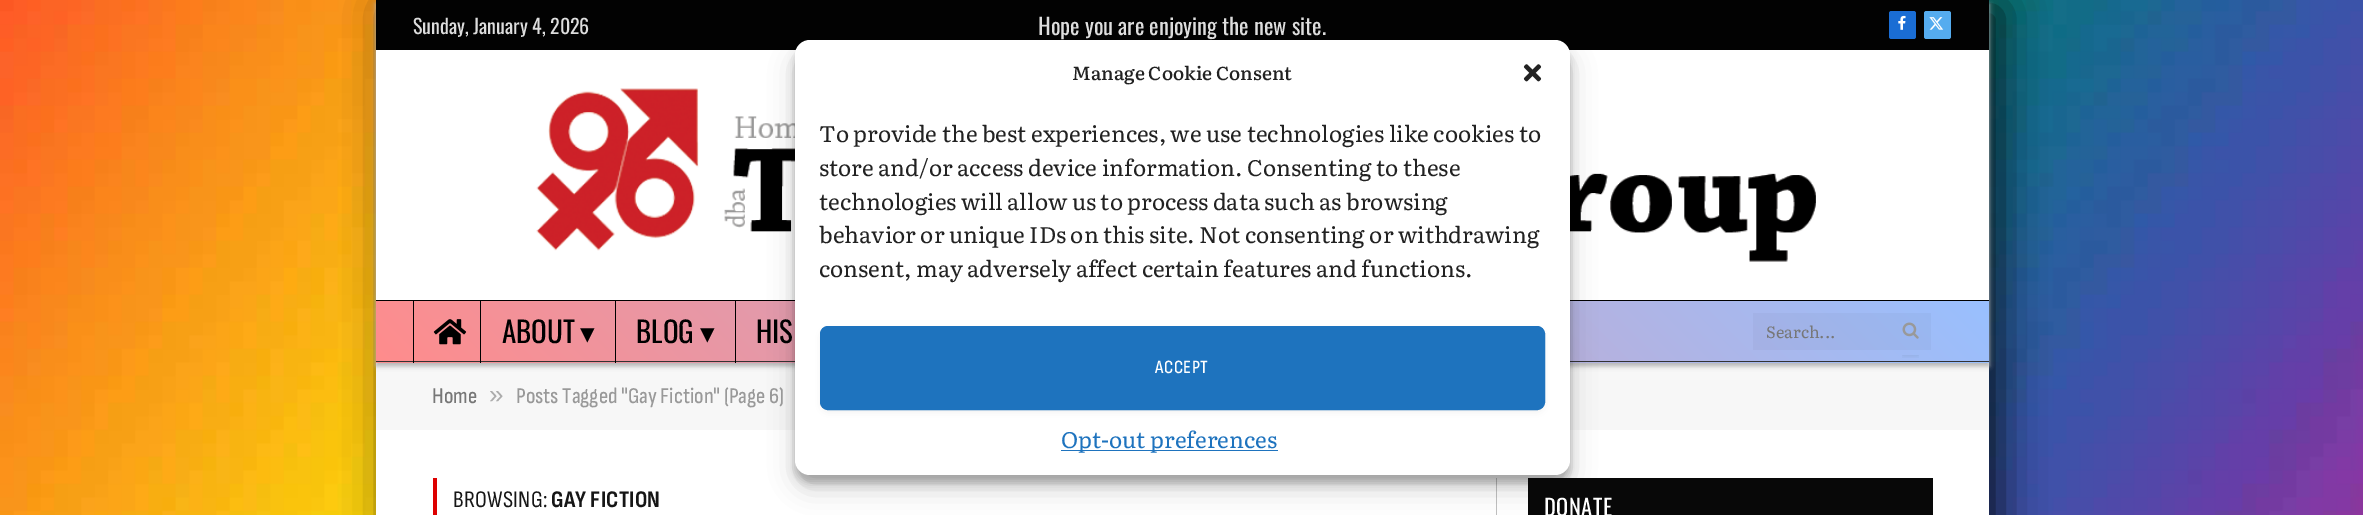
%!PS
<< /PageSize [2363 515] /PageUsesTransparency true >> setpagedevice
/rgb { 3 { 255 div 3 1 roll } repeat setrgbcolor } def
/font { [ exch dup neg 0 0 3 -1 roll 0 0 ] selectfont } def
/alpha { dup .setfillconstantalpha .setstrokeconstantalpha } def
/roundrect { 5 dict begin { /r /h /w /y /x } { exch def } forall
  x r add y moveto x w add y 2 copy h add r arct x w add y h add x 1 index r arct
  x y h add x y r arct x y 2 copy exch w add exch r arct closepath end } def
/shadow { 12 dict begin { /a /b /q /h /w /y /x } { exch def } forall gsave /was 0 def
  9 -2 -9 { dup b mul 4 div /e exch def 1 sub .425 mul 2.718 exch exp 1 add a .99 .min exch div /now exch def
    1 1 now sub 1 was sub div sub alpha /was now def
    w h .min e 2 mul add 0 gt { x e sub y e sub w e 2 mul add h e 2 mul add
      q e add b .6 mul add w h .min 2 div e add .min 0 .max roundrect fill } if } for grestore end } def
/picture { 5 dict begin { /h /w /y /x /name } { exch def } forall
  gsave x y translate w h scale
  w h 8 [w 0 0 h 0 0] name (r) file false 3 colorimage grestore end } def
0 .pushpdf14devicefilter
0 515 translate 1 -1 scale
4 setmiterlimit
255 255 255 rgb
0 0 2363 515 rectfill
(img/1.rgb) 0 0 2363 515 picture
0 0 0 rgb
389 8 1612 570 0 21 0.75 shadow
255 255 255 rgb
376 50 1613 465 rectfill
247 247 247 rgb
376 363 1613 67 rectfill
gsave
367 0 moveto 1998 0 lineto 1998 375 lineto 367 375 lineto closepath 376 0 moveto 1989 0 lineto 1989 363 lineto 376 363 lineto closepath eoclip newpath
178 178 178 rgb
376 4 1613 362 0 2.5 1 shadow
grestore
2 2 2 rgb
376 0 1613 50 rectfill
26 109 212 rgb
1889 11 27 28 2.5 roundrect fill
(img/2.rgb) 1898 15 8 15 picture
85 172 239 rgb
1924 11 27 28 2.5 roundrect fill
(img/3.rgb) 1929 17 15 13 picture
(img/4.rgb) 536 88 1280 176 picture
gsave 376 301 moveto 1989 301 lineto 1989 361 lineto 376 361 lineto closepath clip newpath
<< /ShadingType 2 /ColorSpace /DeviceRGB /Coords [764 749 1601 -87] /Extend [true true] /Function << /FunctionType 2 /Domain [0 1] /C0 [1 0.549 0.549] /C1 [0.6 0.753 1] /N 1 >> >> shfill grestore
gsave 376 362 moveto 1989 362 lineto 1989 363 lineto 376 363 lineto closepath clip newpath
<< /ShadingType 2 /ColorSpace /DeviceRGB /Coords [764 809 1601 -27] /Extend [true true] /Function << /FunctionType 2 /Domain [0 1] /C0 [1 0.549 0.549] /C1 [0.6 0.753 1] /N 1 >> >> shfill grestore
[
  [376 300 1613 1 0 0 0]
  [376 361 1613 1 51 51 51]
  [480 300 1 63 0 0 0]
  [413 300 1 63 0 0 0]
] { aload pop rgb rectfill } forall
(img/5.rgb) 433 319 34 26 picture
[
  [615 300 1 63 0 0 0]
  [735 300 1 63 0 0 0]
] { aload pop rgb rectfill } forall
0.03 alpha
[
  [1753 313 178 37 0 0 0]
] { aload pop rgb rectfill } forall
gsave
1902 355 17 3 rectclip
1 alpha
1903 315 15 38 0 4.5 0.16 shadow
grestore
1 alpha
(img/6.rgb) 1902 322 17 17 picture
[
  [433 478 4 37 221 0 0]
  [1496 478 1 37 192 192 192]
  [1528 478 405 37 8 8 8]
] { aload pop rgb rectfill } forall
0 0 0 rgb
795 48 775 435 15 4 0.23 shadow
795 53 775 435 15 12.5 0.19 shadow
255 255 255 rgb
795 40 775 435 15 roundrect fill
(img/7.rgb) 1523 64 19 18 picture
0 0 0 rgb
825 334 715 74 2.5 4.5 0.16 shadow
30 115 190 rgb
820.5 326.5 724 83 7.5 roundrect gsave fill grestore
stroke
1061 450 217 1 rectfill
/Oswald-Regular 20 font
221 221 221 rgb
413 34 moveto (Sunday, January 4, 2026) show
/Oswald-Regular 22.5 font
1038 35 moveto (Hope you are enjoying the new site.) show
/Oswald-Regular 29 font
0 0 0 rgb
502 343 moveto (ABOUT) show
/DejaVuSans-Regular 29 font
580 343 moveto (▾) show
/Oswald-Regular 29 font
636 343 moveto (BLOG) show
/DejaVuSans-Regular 29 font
700 343 moveto (▾) show
/Oswald-Regular 29 font
756 343 moveto (HIS) show
/Literata-Regular 16.25 font
119 119 119 rgb
1766 338 moveto (Search...) show
/SofiaSansCondensed-Medium 22.5 font
432 403 moveto (Home) show
/LiberationSans-Regular 26 font
172 172 172 rgb
489 403 moveto (») show
/SofiaSansCondensed-Medium 22.5 font
153 153 153 rgb
516 403 moveto (Posts Tagged "Gay Fiction" \(Page 6\)) show
/SofiaSansCondensed-Regular 23.75 font
22 22 22 rgb
453 507 moveto 0.25 0 (BROWSING:) ashow
/SofiaSansCondensed-Bold 23.75 font
551 507 moveto 0.25 0 (GAY FICTION) ashow
/Oswald-Regular 22.5 font
255 255 255 rgb
1544 516 moveto 0.5 0 (DONATE) ashow
/Literata-Medium 18.75 font
34 34 34 rgb
1072 80 moveto (Manage Cookie Consent) show
/Literata-Regular 22.5 font
[
  [(To provide the best experiences, we use technologies like cookies to) 819 142]
  [(store and/or access device information. Consenting to these) 819 176]
  [(technologies will allow us to process data such as browsing) 819 210]
  [(behavior or unique IDs on this site. Not consenting or withdrawing) 819 243]
  [(consent, may adversely affect certain features and functions.) 819 277]
] { aload pop moveto show } forall
/SofiaSansCondensed-Medium 18.75 font
255 255 255 rgb
1155 373 moveto 0.5 0 (ACCEPT) ashow
/Literata-Regular 22.5 font
30 115 190 rgb
1061 448 moveto (Opt-out preferences) show
.poppdf14devicefilter showpage
